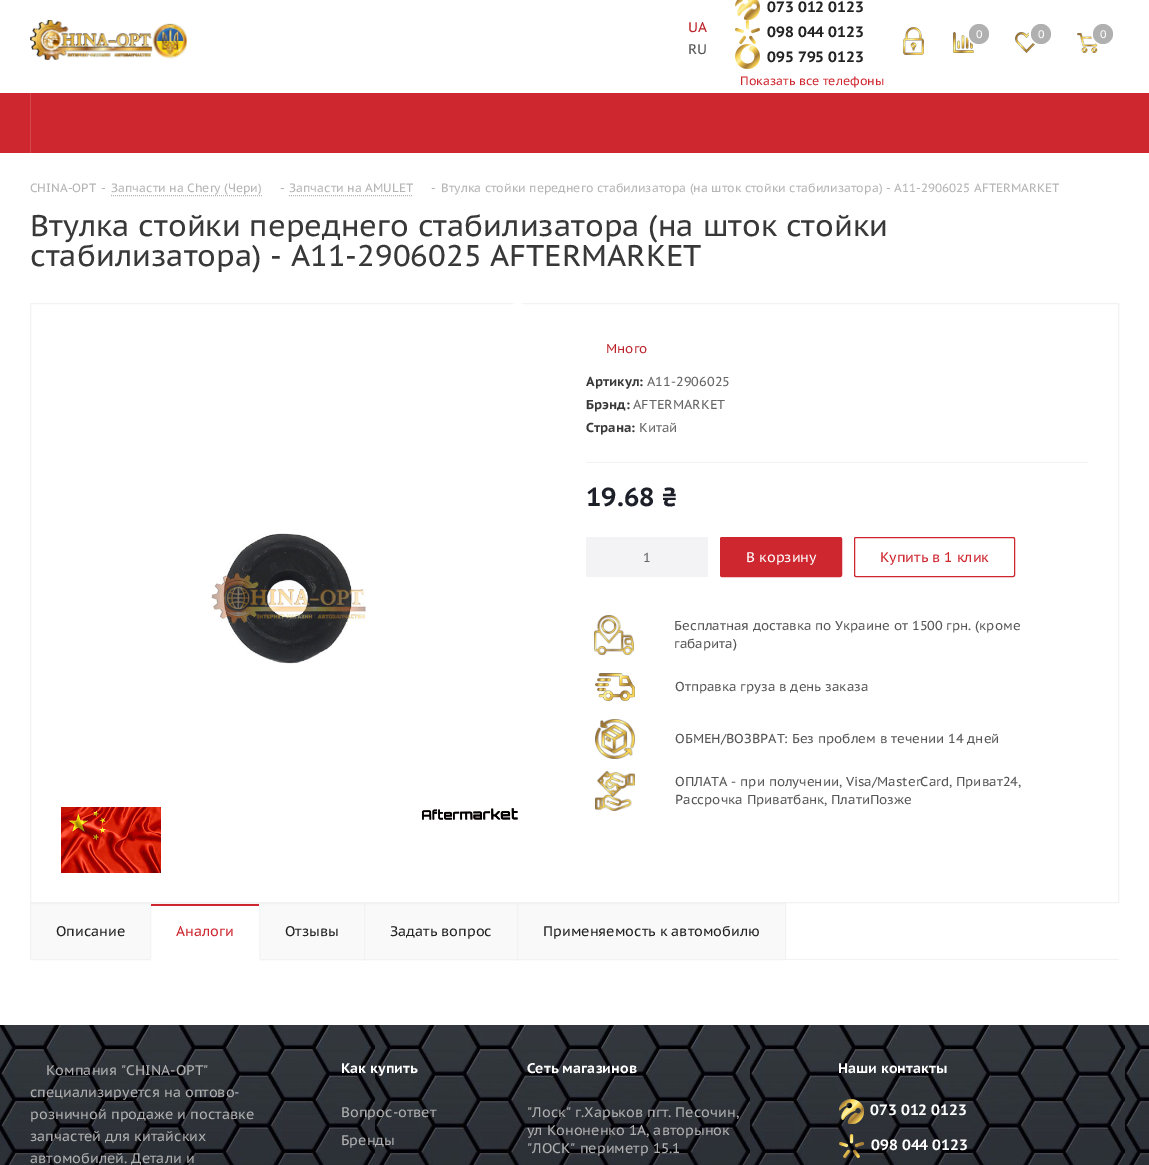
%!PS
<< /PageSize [1149 1165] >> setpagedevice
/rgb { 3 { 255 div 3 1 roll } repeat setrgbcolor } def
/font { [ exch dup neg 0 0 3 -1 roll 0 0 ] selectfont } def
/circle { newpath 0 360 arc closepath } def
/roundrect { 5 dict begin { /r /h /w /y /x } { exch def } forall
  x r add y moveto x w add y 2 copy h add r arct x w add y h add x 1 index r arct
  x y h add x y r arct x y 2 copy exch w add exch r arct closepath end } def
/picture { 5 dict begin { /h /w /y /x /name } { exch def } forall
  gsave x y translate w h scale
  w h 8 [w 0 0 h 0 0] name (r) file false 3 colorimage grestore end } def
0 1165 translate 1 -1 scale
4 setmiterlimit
255 255 255 rgb
0 0 1149 1165 rectfill
(img/1.rgb) 30 20 157 40 picture
(img/2.rgb) 735 0 25 20 picture
(img/3.rgb) 735 20 25 24 picture
(img/4.rgb) 735 44 25 25 picture
(img/5.rgb) 903 27 21 28 picture
(img/6.rgb) 953 32 21 21 picture
2 setlinewidth
979 34 11 circle stroke
176 176 176 rgb
979 34 10 circle fill
(img/7.rgb) 1015 32 22 21 picture
255 255 255 rgb
1041 34 11 circle stroke
176 176 176 rgb
1041 34 10 circle fill
(img/8.rgb) 1077 33 21 20 picture
255 255 255 rgb
1103 34 11 circle stroke
176 176 176 rgb
1103 34 10 circle fill
207 39 47 rgb
0 93 1149 60 rectfill
214 71 78 rgb
30 93 1 60 rectfill
180 180 180 rgb
1 setlinewidth
[1 1] 0 setdash
111 195.5 moveto 262 195.5 lineto stroke
289 195.5 moveto 413 195.5 lineto stroke
242 242 242 rgb
[] 0 setdash
30.5 303.5 1088 599 rectstroke
255 255 255 rgb
518 320 17 circle fill
(img/9.rgb) 211 533 155 131 picture
(img/10.rgb) 61 807 100 66 picture
(img/11.rgb) 422 808 96 12 picture
242 242 242 rgb
586 462 502 1 rectfill
243 243 245 rgb
586 537 122 40 2 roundrect fill
207 39 47 rgb
720.5 537.5 121 39 1.5 roundrect gsave fill grestore
stroke
854.5 537.5 160 39 1.5 roundrect stroke
(img/12.rgb) 594 615 40 40 picture
(img/13.rgb) 595 673 40 28 picture
(img/14.rgb) 595 719 40 40 picture
(img/15.rgb) 595 771 40 40 picture
242 242 242 rgb
786 959 333 1 rectfill
249 249 250 rgb
30.5 903.5 moveto 150.5 903.5 lineto 150.5 959.5 lineto 30.5 959.5 lineto closepath gsave fill grestore
242 242 242 rgb
stroke
249 249 250 rgb
259.5 903.5 moveto 364.5 903.5 lineto 364.5 959.5 lineto 259.5 959.5 lineto closepath gsave fill grestore
242 242 242 rgb
stroke
[
  [150 903 110 1 245 245 245]
  [259 903 1 57 245 245 245]
  [150 959 110 1 255 255 255]
  [150 903 1 57 245 245 245]
  [151 904 108 2 207 39 47]
] { aload pop rgb rectfill } forall
249 249 250 rgb
364.5 903.5 moveto 517.5 903.5 lineto 517.5 959.5 lineto 364.5 959.5 lineto closepath gsave fill grestore
242 242 242 rgb
stroke
249 249 250 rgb
517.5 903.5 moveto 785.5 903.5 lineto 785.5 959.5 lineto 517.5 959.5 lineto closepath gsave fill grestore
242 242 242 rgb
stroke
(img/16.rgb) 0 1025 1149 140 picture
(img/17.rgb) 839 1099 25 25 picture
(img/18.rgb) 839 1134 25 24 picture
/PTSansCaption-Regular 14 font
187 34 41 rgb
688 32 moveto (UA) show
85 85 85 rgb
688 54 moveto (RU) show
/PTSansCaption-Bold 15 font
34 34 34 rgb
[
  [(073 012 0123) 767 12]
  [(098 044 0123) 767 37]
  [(095 795 0123) 767 62]
] { aload pop moveto show } forall
/PTSansCaption-Regular 12.1 font
207 39 47 rgb
740 85 moveto (Показать все телефоны) show
/PTSansCaption-Regular 11 font
255 255 255 rgb
[
  [(0) 976 38]
  [(0) 1038 38]
  [(0) 1100 38]
] { aload pop moveto show } forall
/PTSansCaption-Regular 12 font
182 181 181 rgb
[
  [(CHINA-OPT) 30 192]
  [(-) 101 192]
  [(Запчасти на Chery \(Чери\)) 111 192]
  [(-) 280 192]
  [(Запчасти на AMULET) 289 192]
  [(-) 431 192]
  [(Втулка стойки переднего стабилизатора \(на шток стойки стабилизатора\) - A11-2906025 AFTERMARKET) 441 192]
] { aload pop moveto show } forall
/PTSansCaption-Regular 29.85 font
56 56 56 rgb
30 236 moveto (Втулка стойки переднего стабилизатора \(на шток стойки) show
30 266 moveto (стабилизатора\) - A11-2906025 AFTERMARKET) show
/PTSansCaption-Regular 13 font
187 34 41 rgb
606 353 moveto (Много) show
/PTSansCaption-Bold 13 font
56 56 56 rgb
586 386 moveto (Артикул:) show
/PTSansCaption-Regular 13 font
102 102 102 rgb
647 386 moveto (A11-2906025) show
/PTSansCaption-Bold 13 font
56 56 56 rgb
586 409 moveto (Брэнд:) show
/PTSansCaption-Regular 13 font
102 102 102 rgb
633 409 moveto (AFTERMARKET) show
/PTSansCaption-Bold 13 font
56 56 56 rgb
586 432 moveto (Страна:) show
/PTSansCaption-Regular 13 font
102 102 102 rgb
639 432 moveto (Китай) show
/PTSansCaption-Bold 26 font
29 32 41 rgb
586 506 moveto (19.68 ₴) show
/PTSansCaption-Regular 13 font
102 102 102 rgb
643 562 moveto (1) show
/PTSansCaption-Regular 14 font
255 255 255 rgb
746 562 moveto (В корзину) show
207 39 47 rgb
880 562 moveto (Купить в 1 клик) show
/PTSansCaption-Regular 13 font
85 85 85 rgb
[
  [(Бесплатная доставка по Украине от 1500 грн. \(кроме) 674 630]
  [(габарита\)) 674 648]
  [(Отправка груза в день заказа) 675 691]
  [(ОБМЕН/ВОЗВРАТ: Без проблем в течении 14 дней) 675 743]
  [(ОПЛАТА - при получении, Visa/MasterCard, Приват24,) 675 786]
  [(Рассрочка Приватбанк, ПлатиПозже) 675 804]
] { aload pop moveto show } forall
/PTSansCaption-Regular 14 font
34 34 34 rgb
56 936 moveto (Описание) show
207 39 47 rgb
176 936 moveto (Аналоги) show
34 34 34 rgb
[
  [(Отзывы) 285 936]
  [(Задать вопрос) 390 936]
  [(Применяемость к автомобилю) 543 936]
] { aload pop moveto show } forall
176 176 176 rgb
[
  [(Компания "CHINA-OPT") 46 1075]
  [(специализируется на оптово-) 30 1097]
  [(розничной продаже и поставке) 30 1119]
  [(запчастей для китайских) 30 1141]
  [(автомобилей. Детали и) 30 1163]
] { aload pop moveto show } forall
/PTSansCaption-Bold 14 font
255 255 255 rgb
341 1073 moveto (Как купить) show
/PTSansCaption-Regular 14 font
176 176 176 rgb
341 1117 moveto (Вопрос-ответ) show
341 1145 moveto (Бренды) show
/PTSansCaption-Bold 14 font
255 255 255 rgb
527 1073 moveto (Cеть магазинов) show
/PTSansCaption-Regular 14 font
176 176 176 rgb
[
  [("Лоск" г.Харьков пгт. Песочин,) 527 1117]
  [(ул Кононенко 1А, авторынок) 527 1135]
  [("ЛОСК" периметр 15.1) 527 1153]
] { aload pop moveto show } forall
/PTSansCaption-Bold 14 font
255 255 255 rgb
838 1073 moveto (Наши контакты) show
/PTSansCaption-Bold 15 font
870 1115 moveto (073 012 0123) show
871 1150 moveto (098 044 0123) show
showpage
